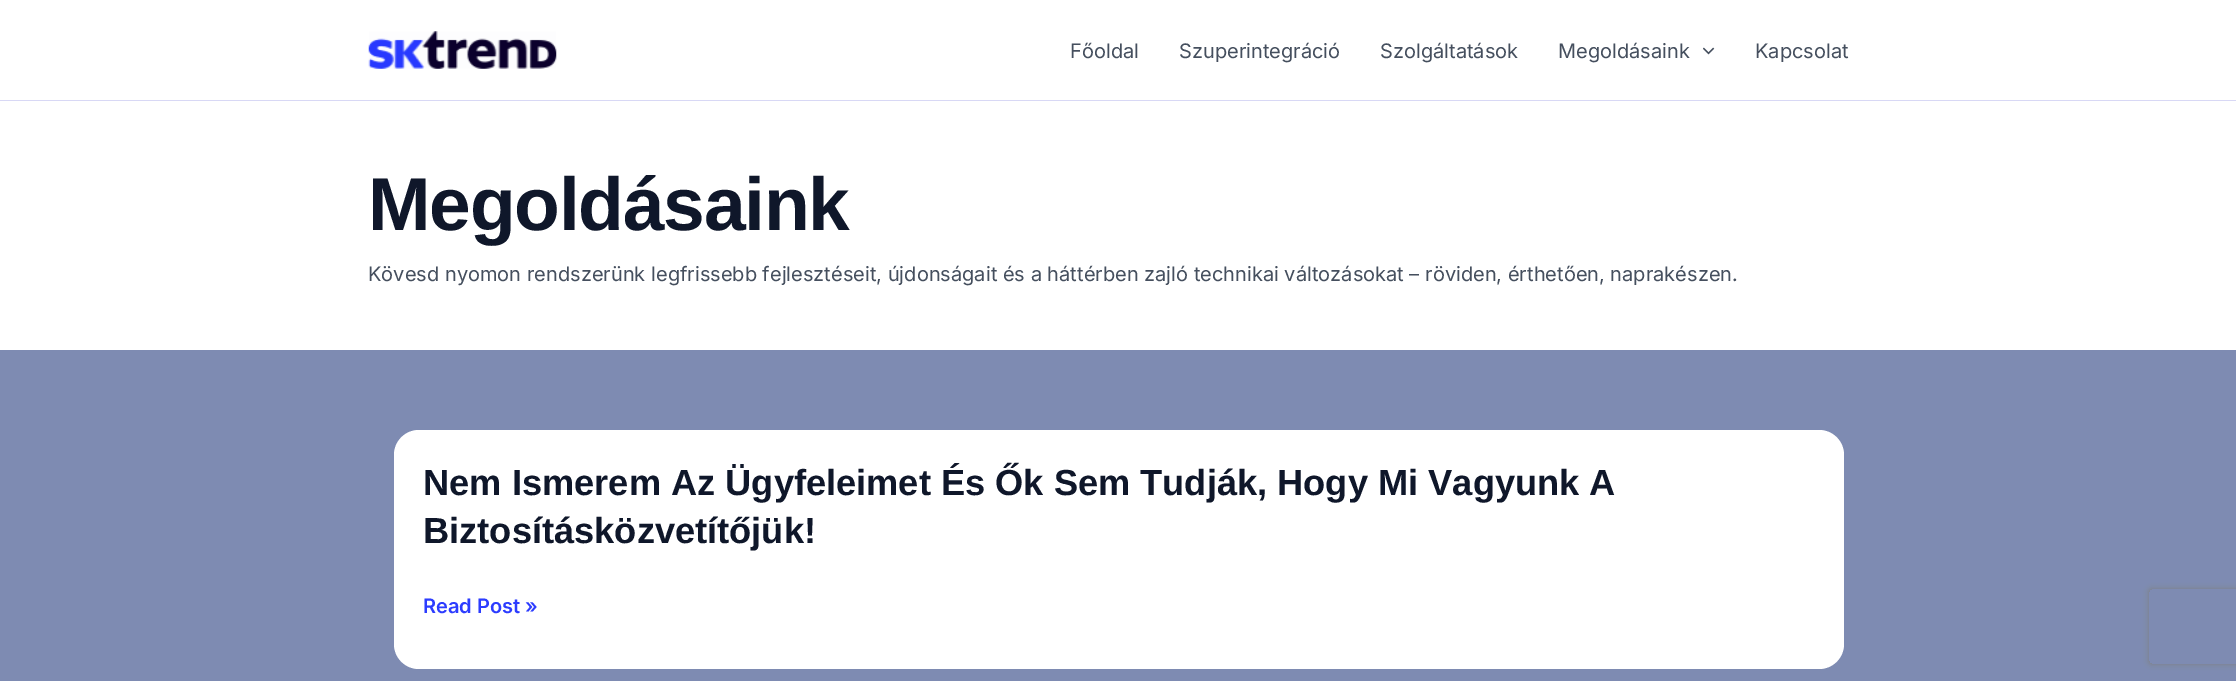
%!PS
<< /PageSize [2236 681] /PageUsesTransparency true >> setpagedevice
/rgb { 3 { 255 div 3 1 roll } repeat setrgbcolor } def
/font { [ exch dup neg 0 0 3 -1 roll 0 0 ] selectfont } def
/alpha { dup .setfillconstantalpha .setstrokeconstantalpha } def
/roundrect { 5 dict begin { /r /h /w /y /x } { exch def } forall
  x r add y moveto x w add y 2 copy h add r arct x w add y h add x 1 index r arct
  x y h add x y r arct x y 2 copy exch w add exch r arct closepath end } def
/shadow { 12 dict begin { /a /b /q /h /w /y /x } { exch def } forall gsave /was 0 def
  9 -2 -9 { dup b mul 4 div /e exch def 1 sub .425 mul 2.718 exch exp 1 add a .99 .min exch div /now exch def
    1 1 now sub 1 was sub div sub alpha /was now def
    w h .min e 2 mul add 0 gt { x e sub y e sub w e 2 mul add h e 2 mul add
      q e add b .6 mul add w h .min 2 div e add .min 0 .max roundrect fill } if } for grestore end } def
/picture { 5 dict begin { /h /w /y /x /name } { exch def } forall
  gsave x y translate w h scale
  w h 8 [w 0 0 h 0 0] name (r) file false 3 colorimage grestore end } def
0 .pushpdf14devicefilter
0 681 translate 1 -1 scale
4 setmiterlimit
126 139 178 rgb
0 0 2236 681 rectfill
255 255 255 rgb
0 0 2236 100 rectfill
216 216 245 rgb
0 100 2236 1 rectfill
(img/1.rgb) 368 31 189 38 picture
(img/2.rgb) 1703 47 12 8 picture
255 255 255 rgb
0 101 2236 249 rectfill
394 430 1450 239 25 roundrect fill
gsave
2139 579 moveto 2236 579 lineto 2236 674 lineto 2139 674 lineto closepath 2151.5 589 moveto 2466.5 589 lineto 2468 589 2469 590 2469 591.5 curveto 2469 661.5 lineto 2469 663 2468 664 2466.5 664 curveto 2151.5 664 lineto 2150 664 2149 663 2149 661.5 curveto 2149 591.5 lineto 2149 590 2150 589 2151.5 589 curveto closepath eoclip newpath
128 128 128 rgb
2149 589 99 75 2.5 3 1 shadow
grestore
/Inter-Regular 20 font
69 79 94 rgb
[
  [(Főoldal) 1070 58]
  [(Szuperintegráció) 1179 58]
  [(Szolgáltatások) 1380 58]
  [(Megoldásaink) 1558 58]
  [(Kapcsolat) 1755 58]
] { aload pop moveto show } forall
/LiberationSans-Bold 75 font
15 23 42 rgb
368 230 moveto -1.25 0 (Megoldásaink) ashow
/Inter-Regular 20 font
69 79 94 rgb
368 281 moveto (Kövesd nyomon rendszerünk legfrissebb fejlesztéseit, újdonságait és a háttérben zajló technikai változásokat – röviden, érthetően, naprakészen.) show
/LiberationSans-Bold 36.25 font
15 23 42 rgb
423 495 moveto (Nem Ismerem Az Ügyfeleimet És Ők Sem Tudják, Hogy Mi Vagyunk A) show
423 543 moveto (Biztosításközvetítőjük!) show
/Inter-SemiBold 20 font
44 60 255 rgb
423 613 moveto (Read Post ») show
.poppdf14devicefilter showpage
